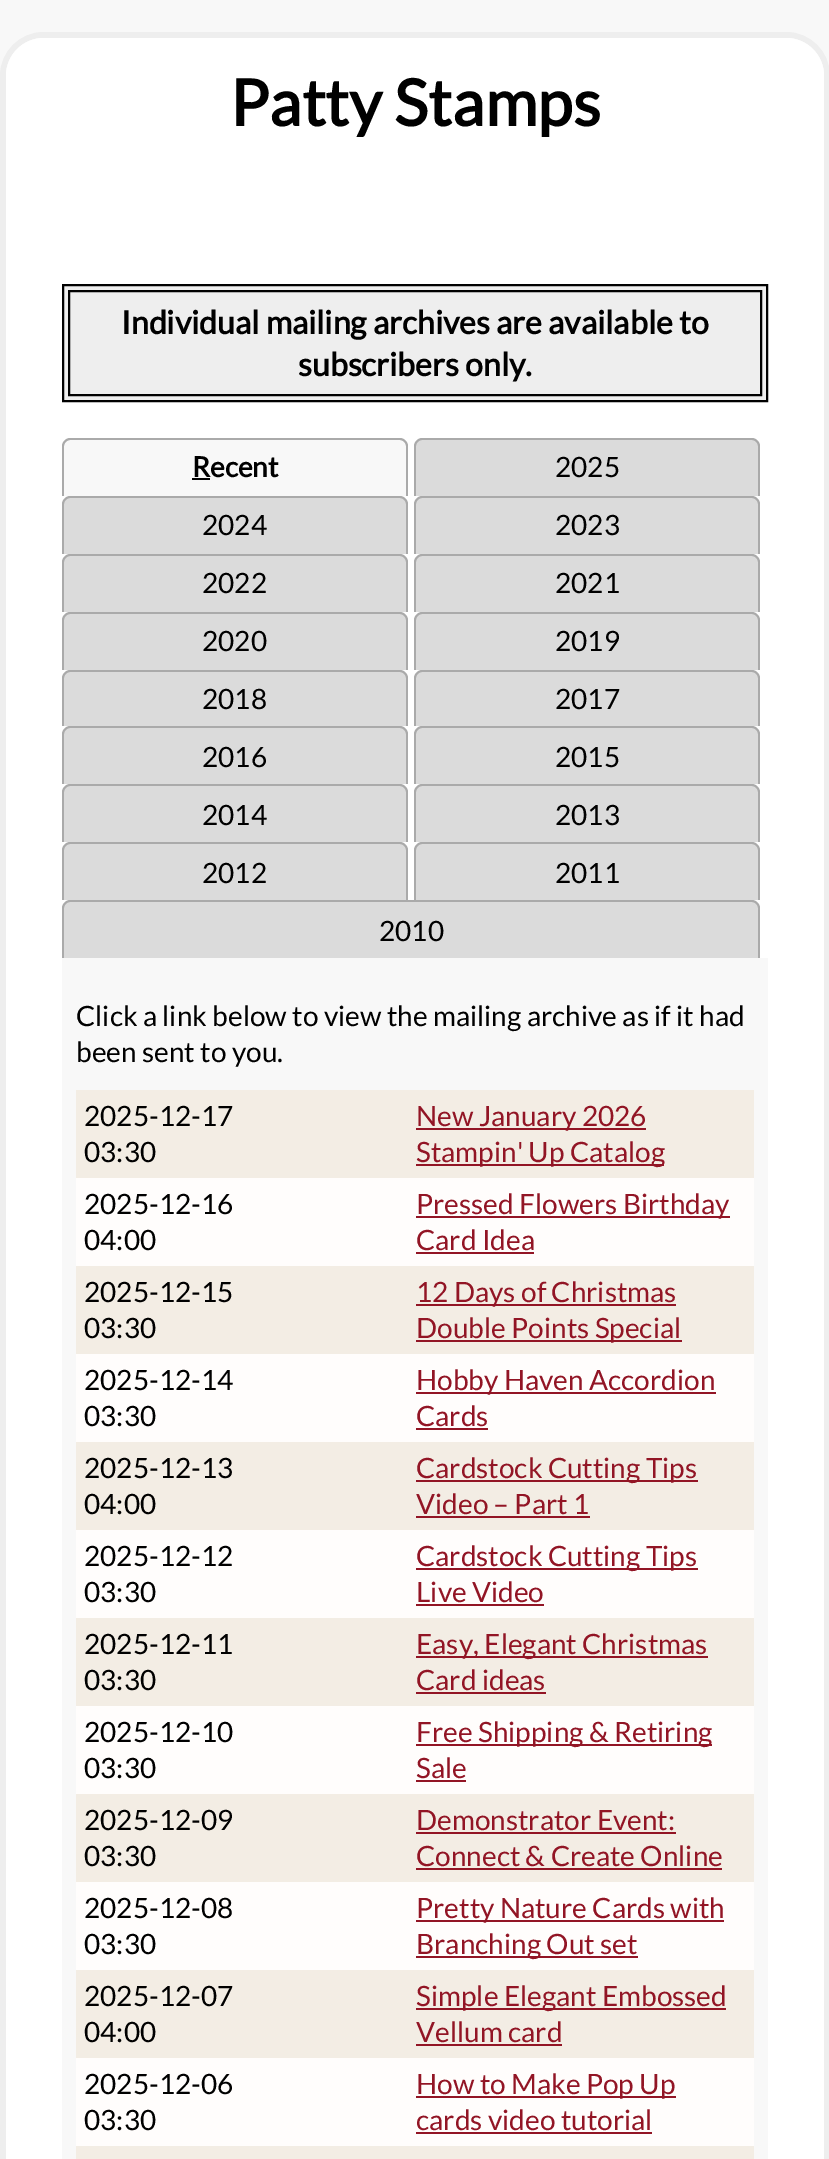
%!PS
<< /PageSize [829 2159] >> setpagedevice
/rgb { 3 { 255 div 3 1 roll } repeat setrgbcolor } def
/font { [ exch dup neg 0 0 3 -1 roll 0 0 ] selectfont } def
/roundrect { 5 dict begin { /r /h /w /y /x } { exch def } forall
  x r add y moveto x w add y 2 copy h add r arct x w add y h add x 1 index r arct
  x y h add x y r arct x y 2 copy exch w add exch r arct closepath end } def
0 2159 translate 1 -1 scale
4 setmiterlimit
248 248 248 rgb
0 0 829 2159 rectfill
238 238 238 rgb
6 setlinewidth
3 35 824 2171 41 roundrect stroke
gsave
6 38 818 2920 38 roundrect clip newpath
255 255 255 rgb
44 38 moveto 786 38 lineto 807 38 824 55 824 76 curveto 824 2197 lineto 6 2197 lineto 6 76 lineto 6 55 23 38 44 38 curveto closepath fill
grestore
255 255 255 rgb
44 38 moveto 786 38 lineto 807 38 824 55 824 76 curveto 824 166 lineto 6 166 lineto 6 76 lineto 6 55 23 38 44 38 curveto closepath fill
238 238 238 rgb
63 285 moveto 767 285 lineto 767 401 lineto 63 401 lineto closepath gsave fill grestore
0 0 0 rgb
2 setlinewidth
stroke
69 291 692 104 rectstroke
248 248 248 rgb
70 440 moveto 400 440 lineto 403.5 440 406 442.5 406 446 curveto 406 496 lineto 64 496 lineto 64 446 lineto 64 442.5 66.5 440 70 440 curveto closepath fill
170 170 170 rgb
70 438 moveto 400 438 lineto 404 438 408 442 408 446 curveto 408 496 lineto 62 496 lineto 62 446 lineto 62 442 66 438 70 438 curveto closepath 70 440 moveto 400 440 lineto 403 440 406 443 406 446 curveto 406 496 lineto 64 496 lineto 64 446 lineto 64 443 67 440 70 440 curveto closepath eofill
0 0 0 rgb
192 478 18 2 rectfill
219 219 219 rgb
422 440 moveto 752 440 lineto 755.5 440 758 442.5 758 446 curveto 758 496 lineto 416 496 lineto 416 446 lineto 416 442.5 418.5 440 422 440 curveto closepath fill
170 170 170 rgb
422 438 moveto 752 438 lineto 756 438 760 442 760 446 curveto 760 496 lineto 414 496 lineto 414 446 lineto 414 442 418 438 422 438 curveto closepath 422 440 moveto 752 440 lineto 755 440 758 443 758 446 curveto 758 496 lineto 416 496 lineto 416 446 lineto 416 443 419 440 422 440 curveto closepath eofill
219 219 219 rgb
70 498 moveto 400 498 lineto 403.5 498 406 500.5 406 504 curveto 406 554 lineto 64 554 lineto 64 504 lineto 64 500.5 66.5 498 70 498 curveto closepath fill
170 170 170 rgb
70 496 moveto 400 496 lineto 404 496 408 500 408 504 curveto 408 554 lineto 62 554 lineto 62 504 lineto 62 500 66 496 70 496 curveto closepath 70 498 moveto 400 498 lineto 403 498 406 501 406 504 curveto 406 554 lineto 64 554 lineto 64 504 lineto 64 501 67 498 70 498 curveto closepath eofill
219 219 219 rgb
422 498 moveto 752 498 lineto 755.5 498 758 500.5 758 504 curveto 758 554 lineto 416 554 lineto 416 504 lineto 416 500.5 418.5 498 422 498 curveto closepath fill
170 170 170 rgb
422 496 moveto 752 496 lineto 756 496 760 500 760 504 curveto 760 554 lineto 414 554 lineto 414 504 lineto 414 500 418 496 422 496 curveto closepath 422 498 moveto 752 498 lineto 755 498 758 501 758 504 curveto 758 554 lineto 416 554 lineto 416 504 lineto 416 501 419 498 422 498 curveto closepath eofill
219 219 219 rgb
70 556 moveto 400 556 lineto 403.5 556 406 558.5 406 562 curveto 406 612 lineto 64 612 lineto 64 562 lineto 64 558.5 66.5 556 70 556 curveto closepath fill
170 170 170 rgb
70 554 moveto 400 554 lineto 404 554 408 558 408 562 curveto 408 612 lineto 62 612 lineto 62 562 lineto 62 558 66 554 70 554 curveto closepath 70 556 moveto 400 556 lineto 403 556 406 559 406 562 curveto 406 612 lineto 64 612 lineto 64 562 lineto 64 559 67 556 70 556 curveto closepath eofill
219 219 219 rgb
422 556 moveto 752 556 lineto 755.5 556 758 558.5 758 562 curveto 758 612 lineto 416 612 lineto 416 562 lineto 416 558.5 418.5 556 422 556 curveto closepath fill
170 170 170 rgb
422 554 moveto 752 554 lineto 756 554 760 558 760 562 curveto 760 612 lineto 414 612 lineto 414 562 lineto 414 558 418 554 422 554 curveto closepath 422 556 moveto 752 556 lineto 755 556 758 559 758 562 curveto 758 612 lineto 416 612 lineto 416 562 lineto 416 559 419 556 422 556 curveto closepath eofill
219 219 219 rgb
70 614 moveto 400 614 lineto 403.5 614 406 616.5 406 620 curveto 406 670 lineto 64 670 lineto 64 620 lineto 64 616.5 66.5 614 70 614 curveto closepath fill
170 170 170 rgb
70 612 moveto 400 612 lineto 404 612 408 616 408 620 curveto 408 670 lineto 62 670 lineto 62 620 lineto 62 616 66 612 70 612 curveto closepath 70 614 moveto 400 614 lineto 403 614 406 617 406 620 curveto 406 670 lineto 64 670 lineto 64 620 lineto 64 617 67 614 70 614 curveto closepath eofill
219 219 219 rgb
422 614 moveto 752 614 lineto 755.5 614 758 616.5 758 620 curveto 758 670 lineto 416 670 lineto 416 620 lineto 416 616.5 418.5 614 422 614 curveto closepath fill
170 170 170 rgb
422 612 moveto 752 612 lineto 756 612 760 616 760 620 curveto 760 670 lineto 414 670 lineto 414 620 lineto 414 616 418 612 422 612 curveto closepath 422 614 moveto 752 614 lineto 755 614 758 617 758 620 curveto 758 670 lineto 416 670 lineto 416 620 lineto 416 617 419 614 422 614 curveto closepath eofill
219 219 219 rgb
70 672 moveto 400 672 lineto 403.5 672 406 674.5 406 678 curveto 406 726 lineto 64 726 lineto 64 678 lineto 64 674.5 66.5 672 70 672 curveto closepath fill
170 170 170 rgb
70 670 moveto 400 670 lineto 404 670 408 674 408 678 curveto 408 726 lineto 62 726 lineto 62 678 lineto 62 674 66 670 70 670 curveto closepath 70 672 moveto 400 672 lineto 403 672 406 675 406 678 curveto 406 726 lineto 64 726 lineto 64 678 lineto 64 675 67 672 70 672 curveto closepath eofill
219 219 219 rgb
422 672 moveto 752 672 lineto 755.5 672 758 674.5 758 678 curveto 758 726 lineto 416 726 lineto 416 678 lineto 416 674.5 418.5 672 422 672 curveto closepath fill
170 170 170 rgb
422 670 moveto 752 670 lineto 756 670 760 674 760 678 curveto 760 726 lineto 414 726 lineto 414 678 lineto 414 674 418 670 422 670 curveto closepath 422 672 moveto 752 672 lineto 755 672 758 675 758 678 curveto 758 726 lineto 416 726 lineto 416 678 lineto 416 675 419 672 422 672 curveto closepath eofill
219 219 219 rgb
70 728 moveto 400 728 lineto 403.5 728 406 730.5 406 734 curveto 406 784 lineto 64 784 lineto 64 734 lineto 64 730.5 66.5 728 70 728 curveto closepath fill
170 170 170 rgb
70 726 moveto 400 726 lineto 404 726 408 730 408 734 curveto 408 784 lineto 62 784 lineto 62 734 lineto 62 730 66 726 70 726 curveto closepath 70 728 moveto 400 728 lineto 403 728 406 731 406 734 curveto 406 784 lineto 64 784 lineto 64 734 lineto 64 731 67 728 70 728 curveto closepath eofill
219 219 219 rgb
422 728 moveto 752 728 lineto 755.5 728 758 730.5 758 734 curveto 758 784 lineto 416 784 lineto 416 734 lineto 416 730.5 418.5 728 422 728 curveto closepath fill
170 170 170 rgb
422 726 moveto 752 726 lineto 756 726 760 730 760 734 curveto 760 784 lineto 414 784 lineto 414 734 lineto 414 730 418 726 422 726 curveto closepath 422 728 moveto 752 728 lineto 755 728 758 731 758 734 curveto 758 784 lineto 416 784 lineto 416 734 lineto 416 731 419 728 422 728 curveto closepath eofill
219 219 219 rgb
70 786 moveto 400 786 lineto 403.5 786 406 788.5 406 792 curveto 406 842 lineto 64 842 lineto 64 792 lineto 64 788.5 66.5 786 70 786 curveto closepath fill
170 170 170 rgb
70 784 moveto 400 784 lineto 404 784 408 788 408 792 curveto 408 842 lineto 62 842 lineto 62 792 lineto 62 788 66 784 70 784 curveto closepath 70 786 moveto 400 786 lineto 403 786 406 789 406 792 curveto 406 842 lineto 64 842 lineto 64 792 lineto 64 789 67 786 70 786 curveto closepath eofill
219 219 219 rgb
422 786 moveto 752 786 lineto 755.5 786 758 788.5 758 792 curveto 758 842 lineto 416 842 lineto 416 792 lineto 416 788.5 418.5 786 422 786 curveto closepath fill
170 170 170 rgb
422 784 moveto 752 784 lineto 756 784 760 788 760 792 curveto 760 842 lineto 414 842 lineto 414 792 lineto 414 788 418 784 422 784 curveto closepath 422 786 moveto 752 786 lineto 755 786 758 789 758 792 curveto 758 842 lineto 416 842 lineto 416 792 lineto 416 789 419 786 422 786 curveto closepath eofill
219 219 219 rgb
70 844 moveto 400 844 lineto 403.5 844 406 846.5 406 850 curveto 406 900 lineto 64 900 lineto 64 850 lineto 64 846.5 66.5 844 70 844 curveto closepath fill
170 170 170 rgb
70 842 moveto 400 842 lineto 404 842 408 846 408 850 curveto 408 900 lineto 62 900 lineto 62 850 lineto 62 846 66 842 70 842 curveto closepath 70 844 moveto 400 844 lineto 403 844 406 847 406 850 curveto 406 900 lineto 64 900 lineto 64 850 lineto 64 847 67 844 70 844 curveto closepath eofill
219 219 219 rgb
422 844 moveto 752 844 lineto 755.5 844 758 846.5 758 850 curveto 758 900 lineto 416 900 lineto 416 850 lineto 416 846.5 418.5 844 422 844 curveto closepath fill
170 170 170 rgb
422 842 moveto 752 842 lineto 756 842 760 846 760 850 curveto 760 900 lineto 414 900 lineto 414 850 lineto 414 846 418 842 422 842 curveto closepath 422 844 moveto 752 844 lineto 755 844 758 847 758 850 curveto 758 900 lineto 416 900 lineto 416 850 lineto 416 847 419 844 422 844 curveto closepath eofill
219 219 219 rgb
70 902 moveto 752 902 lineto 755.5 902 758 904.5 758 908 curveto 758 958 lineto 64 958 lineto 64 908 lineto 64 904.5 66.5 902 70 902 curveto closepath fill
170 170 170 rgb
70 900 moveto 752 900 lineto 756 900 760 904 760 908 curveto 760 958 lineto 62 958 lineto 62 908 lineto 62 904 66 900 70 900 curveto closepath 70 902 moveto 752 902 lineto 755 902 758 905 758 908 curveto 758 958 lineto 64 958 lineto 64 908 lineto 64 905 67 902 70 902 curveto closepath eofill
[
  [62 958 706 1201 248 248 248]
  [76 1090 678 88 243 237 228]
  [416 1128 230 2 146 21 37]
  [416 1164 248 2 146 21 37]
  [76 1178 678 88 255 253 252]
  [416 1216 314 2 146 21 37]
  [416 1252 118 2 146 21 37]
  [76 1266 678 88 243 237 228]
  [416 1304 260 2 146 21 37]
  [416 1340 266 2 146 21 37]
  [76 1354 678 88 255 253 252]
  [416 1392 300 2 146 21 37]
  [416 1428 72 2 146 21 37]
  [76 1442 678 88 243 237 228]
  [416 1480 282 2 146 21 37]
  [416 1516 174 2 146 21 37]
  [76 1530 678 88 255 253 252]
  [416 1568 282 2 146 21 37]
  [416 1604 128 2 146 21 37]
  [76 1618 678 88 243 237 228]
  [416 1656 292 2 146 21 37]
  [416 1692 130 2 146 21 37]
  [76 1706 678 88 255 253 252]
  [416 1744 296 2 146 21 37]
  [416 1780 50 2 146 21 37]
  [76 1794 678 88 243 237 228]
  [416 1832 260 2 146 21 37]
  [416 1868 306 2 146 21 37]
  [76 1882 678 88 255 253 252]
  [416 1920 308 2 146 21 37]
  [416 1956 222 2 146 21 37]
  [76 1970 678 88 243 237 228]
  [416 2008 310 2 146 21 37]
  [416 2044 146 2 146 21 37]
  [76 2058 678 88 255 253 252]
  [416 2096 260 2 146 21 37]
  [416 2132 236 2 146 21 37]
  [76 2146 678 13 243 237 228]
] { aload pop rgb rectfill } forall
/Lato-Bold 64 font
0 0 0 rgb
230 126 moveto (Patty Stamps) show
/Lato-Bold 32 font
121 334 moveto (Individual mailing archives are available to) show
298 376 moveto (subscribers only.) show
/Lato-Bold 28 font
192 477 moveto (Recent) show
/Lato-Regular 28 font
[
  [(2025) 555 477]
  [(2024) 202 535]
  [(2023) 555 535]
  [(2022) 202 593]
  [(2021) 555 593]
  [(2020) 202 651]
  [(2019) 555 651]
  [(2018) 202 709]
  [(2017) 555 709]
  [(2016) 202 767]
  [(2015) 555 767]
  [(2014) 202 825]
  [(2013) 555 825]
  [(2012) 202 883]
  [(2011) 555 883]
  [(2010) 379 941]
  [(Click a link below to view the mailing archive as if it had) 76 1026]
  [(been sent to you.) 76 1062]
  [(2025-12-17) 84 1126]
  [(03:30) 84 1162]
] { aload pop moveto show } forall
146 21 37 rgb
416 1126 moveto (New January 2026) show
416 1162 moveto (Stampin' Up Catalog) show
0 0 0 rgb
84 1214 moveto (2025-12-16) show
84 1250 moveto (04:00) show
146 21 37 rgb
416 1214 moveto (Pressed Flowers Birthday) show
416 1250 moveto (Card Idea) show
0 0 0 rgb
84 1302 moveto (2025-12-15) show
84 1338 moveto (03:30) show
146 21 37 rgb
416 1302 moveto (12 Days of Christmas) show
416 1338 moveto (Double Points Special) show
0 0 0 rgb
84 1390 moveto (2025-12-14) show
84 1426 moveto (03:30) show
146 21 37 rgb
416 1390 moveto (Hobby Haven Accordion) show
416 1426 moveto (Cards) show
0 0 0 rgb
84 1478 moveto (2025-12-13) show
84 1514 moveto (04:00) show
146 21 37 rgb
416 1478 moveto (Cardstock Cutting Tips) show
416 1514 moveto (Video – Part 1) show
0 0 0 rgb
84 1566 moveto (2025-12-12) show
84 1602 moveto (03:30) show
146 21 37 rgb
416 1566 moveto (Cardstock Cutting Tips) show
416 1602 moveto (Live Video) show
0 0 0 rgb
84 1654 moveto (2025-12-11) show
84 1690 moveto (03:30) show
146 21 37 rgb
416 1654 moveto (Easy, Elegant Christmas) show
416 1690 moveto (Card ideas) show
0 0 0 rgb
84 1742 moveto (2025-12-10) show
84 1778 moveto (03:30) show
146 21 37 rgb
416 1742 moveto (Free Shipping & Retiring) show
416 1778 moveto (Sale) show
0 0 0 rgb
84 1830 moveto (2025-12-09) show
84 1866 moveto (03:30) show
146 21 37 rgb
416 1830 moveto (Demonstrator Event:) show
416 1866 moveto (Connect & Create Online) show
0 0 0 rgb
84 1918 moveto (2025-12-08) show
84 1954 moveto (03:30) show
146 21 37 rgb
416 1918 moveto (Pretty Nature Cards with) show
416 1954 moveto (Branching Out set) show
0 0 0 rgb
84 2006 moveto (2025-12-07) show
84 2042 moveto (04:00) show
146 21 37 rgb
416 2006 moveto (Simple Elegant Embossed) show
416 2042 moveto (Vellum card) show
0 0 0 rgb
84 2094 moveto (2025-12-06) show
84 2130 moveto (03:30) show
146 21 37 rgb
416 2094 moveto (How to Make Pop Up) show
416 2130 moveto (cards video tutorial) show
showpage
